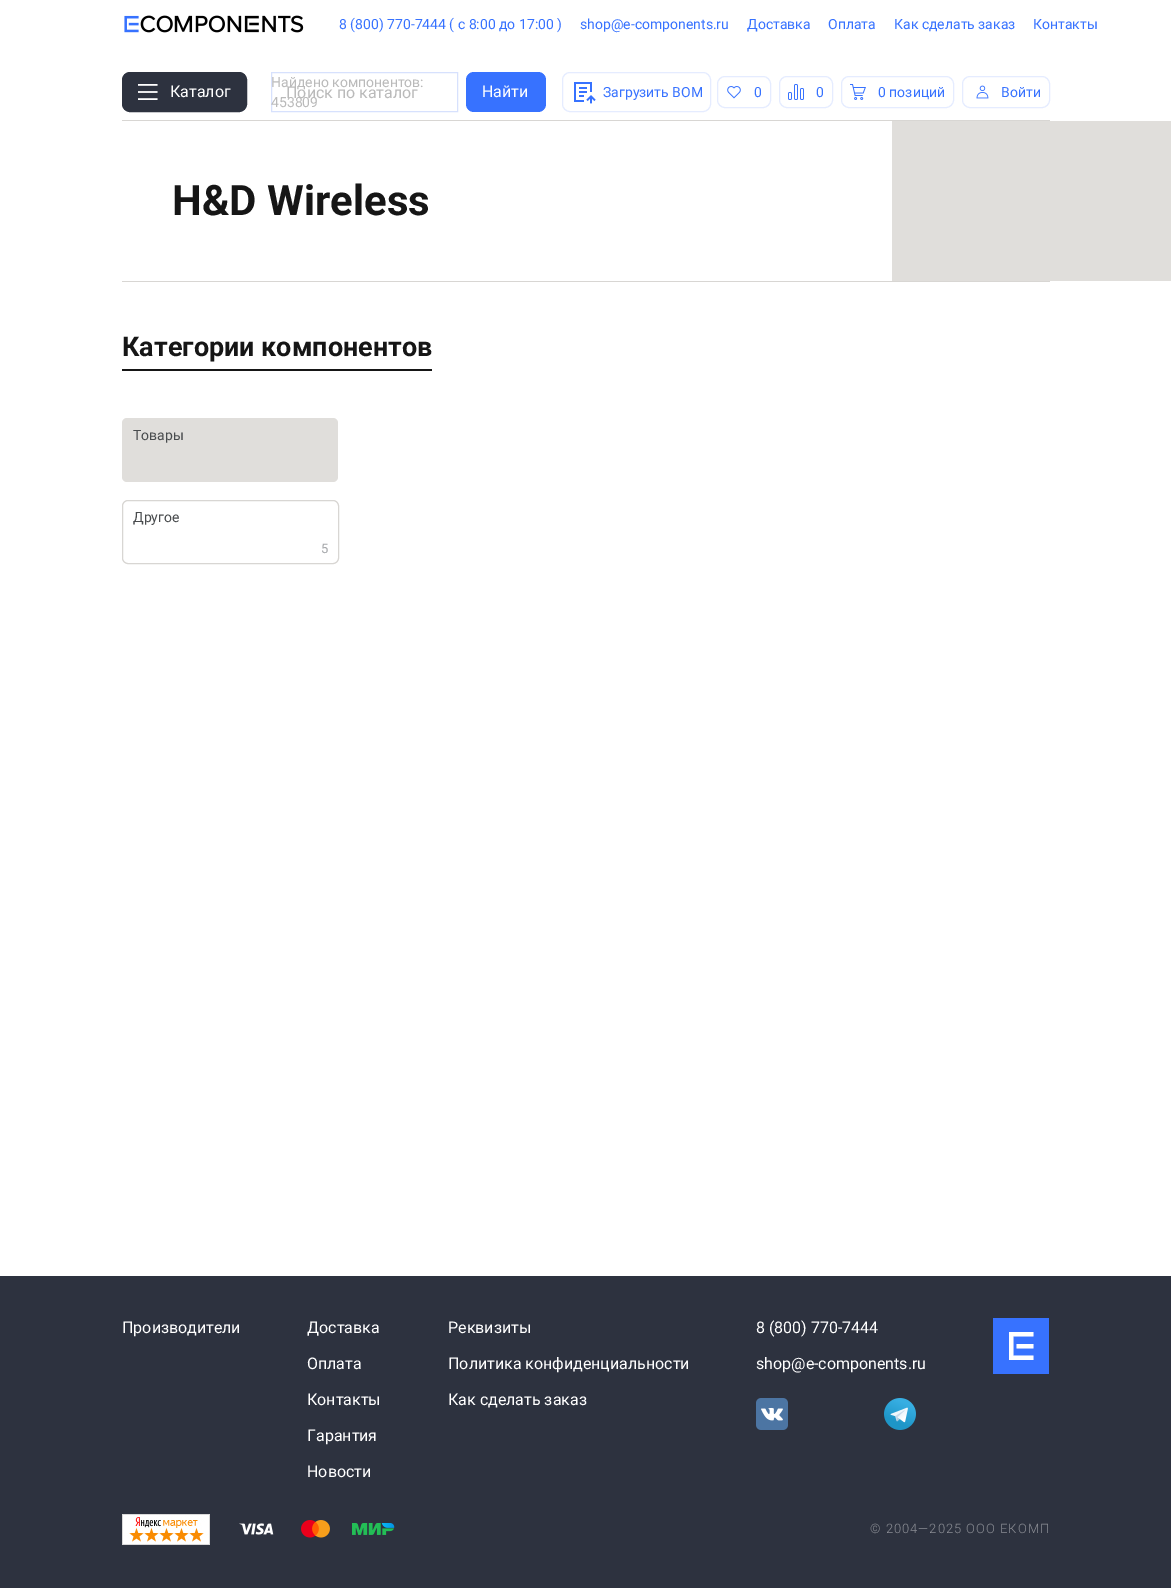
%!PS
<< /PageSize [1171 1588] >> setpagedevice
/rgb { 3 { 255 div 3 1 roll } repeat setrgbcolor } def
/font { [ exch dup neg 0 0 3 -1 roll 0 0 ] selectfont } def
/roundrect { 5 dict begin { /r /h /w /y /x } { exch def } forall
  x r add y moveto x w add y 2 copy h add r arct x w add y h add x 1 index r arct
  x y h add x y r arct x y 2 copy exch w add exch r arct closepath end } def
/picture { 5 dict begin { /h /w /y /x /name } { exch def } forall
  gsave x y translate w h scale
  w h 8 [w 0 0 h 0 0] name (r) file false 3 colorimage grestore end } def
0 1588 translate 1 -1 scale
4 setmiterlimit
255 255 255 rgb
0 0 1171 1588 rectfill
(img/1.rgb) 124 15 180 18 picture
45 50 63 rgb
122.5 72.5 124 39 7.5 roundrect gsave fill grestore
stroke
(img/2.rgb) 138 84 20 16 picture
215 225 253 rgb
271.5 72.5 186 39 rectstroke
55 114 255 rgb
466 72 80 40 8 roundrect fill
229 236 255 rgb
562.5 72.5 148 39 7.5 roundrect stroke
(img/3.rgb) 574 82 22 22 picture
717.5 76.5 53 31 7.5 roundrect stroke
(img/4.rgb) 727 86 14 13 picture
779.5 76.5 53 31 7.5 roundrect stroke
(img/5.rgb) 788 84 16 16 picture
841.5 76.5 112 31 7.5 roundrect stroke
(img/6.rgb) 850 84 16 16 picture
962.5 76.5 87 31 7.5 roundrect stroke
(img/7.rgb) 976 85 13 14 picture
[
  [122 120 928 1 216 214 211]
  [122 281 928 1 216 214 211]
  [892 121 279 160 224 222 219]
  [122 369 310 2 22 22 22]
] { aload pop rgb rectfill } forall
224 222 219 rgb
122 418 216 64 5 roundrect fill
216 214 211 rgb
122.5 500.5 216 63 5.5 roundrect stroke
45 50 63 rgb
0 1276 1171 312 rectfill
(img/8.rgb) 756 1398 32 32 picture
(img/9.rgb) 884 1398 32 32 picture
55 114 255 rgb
993 1318 56 56 rectfill
255 255 255 rgb
1013.5 1332 moveto 1009 1332 lineto 1009 1360 lineto 1033.5 1360 lineto 1033.5 1355.5 lineto 1013.5 1355.5 lineto 1013.5 1336.5 lineto 1033.5 1336.5 lineto 1033.5 1332 lineto closepath 1016.5 1348.5 moveto 1033.5 1348.5 lineto 1033.5 1344 lineto 1016.5 1344 lineto closepath eofill
(img/10.rgb) 122 1514 88 31 picture
(img/11.rgb) 239 1523 35 12 picture
(img/12.rgb) 301 1520 29 18 picture
(img/13.rgb) 352 1523 43 12 picture
/Roboto-Regular 14 font
55 114 255 rgb
[
  [(8 \(800\) 770-7444 \( с 8:00 до 17:00 \)) 339 29]
  [(shop@e-components.ru) 580 29]
  [(Доставка) 747 29]
  [(Оплата) 828 29]
  [(Как сделать заказ) 894 29]
  [(Контакты) 1033 29]
] { aload pop moveto show } forall
/Roboto-Regular 16 font
255 255 255 rgb
170 97 moveto (Каталог) show
/Roboto-Regular 14 font
186 186 186 rgb
271 87 moveto (Найдено компонентов:) show
271 107 moveto (453809) show
/Roboto-Regular 16 font
286 98 moveto (Поиск по каталог) show
255 255 255 rgb
482 97 moveto (Найти) show
/Roboto-Regular 14 font
55 114 255 rgb
[
  [(Загрузить BOM) 603 97]
  [(0) 754 97]
  [(0) 816 97]
  [(0 позиций) 878 97]
  [(Войти) 1001 97]
] { aload pop moveto show } forall
/Roboto-Bold 42 font
22 22 22 rgb
172 215 moveto (H&D Wireless) show
/Roboto-Bold 27 font
122 356 moveto (Категории компонентов) show
/Roboto-Regular 14 font
73 76 78 rgb
133 440 moveto (Товары) show
133 522 moveto (Другое) show
/Roboto-Regular 13 font
165 167 170 rgb
321 553 moveto (5) show
/Roboto-Regular 16 font
255 255 255 rgb
[
  [(Производители) 122 1333]
  [(Доставка) 307 1333]
  [(Оплата) 307 1369]
  [(Контакты) 307 1405]
  [(Гарантия) 307 1441]
  [(Новости) 307 1477]
  [(Реквизиты) 448 1333]
  [(Политика конфиденциальности) 448 1369]
  [(Как сделать заказ) 448 1405]
  [(8 \(800\) 770-7444) 756 1333]
  [(shop@e-components.ru) 756 1369]
] { aload pop moveto show } forall
/Roboto-Light 13 font
140 142 149 rgb
870 1533 moveto 1 0 (© 2004—2025 ООО ЕКОМП) ashow
showpage
